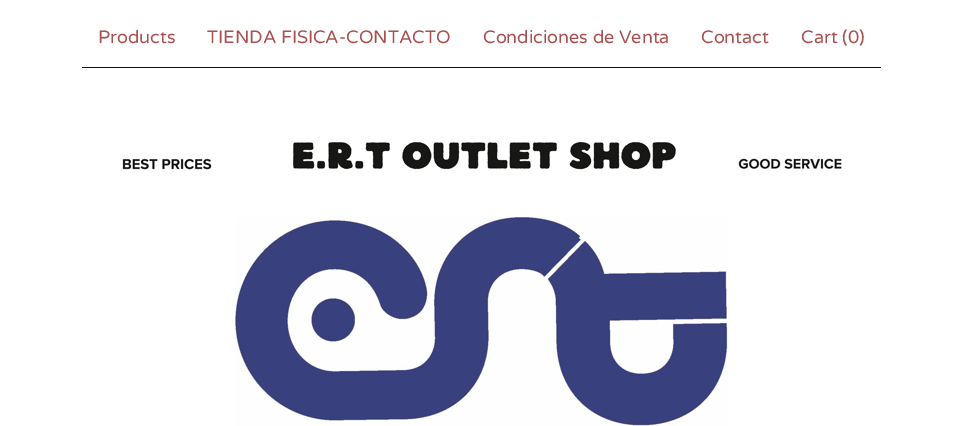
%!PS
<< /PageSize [963 426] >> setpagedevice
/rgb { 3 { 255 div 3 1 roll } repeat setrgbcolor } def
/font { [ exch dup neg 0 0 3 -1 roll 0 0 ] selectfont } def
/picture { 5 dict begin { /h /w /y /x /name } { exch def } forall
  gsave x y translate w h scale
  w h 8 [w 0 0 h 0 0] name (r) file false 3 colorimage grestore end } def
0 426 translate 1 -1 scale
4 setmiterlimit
255 255 255 rgb
0 0 963 426 rectfill
17 17 17 rgb
82 67 799 1 rectfill
(img/1.rgb) 122 141 720 285 picture
/VarelaRound-Regular 18 font
169 81 81 rgb
[
  [(Products) 98 43]
  [(TIENDA FISICA-CONTACTO) 207 43]
  [(Condiciones de Venta) 483 43]
  [(Contact) 701 43]
  [(Cart \(0\)) 801 43]
] { aload pop moveto show } forall
showpage
